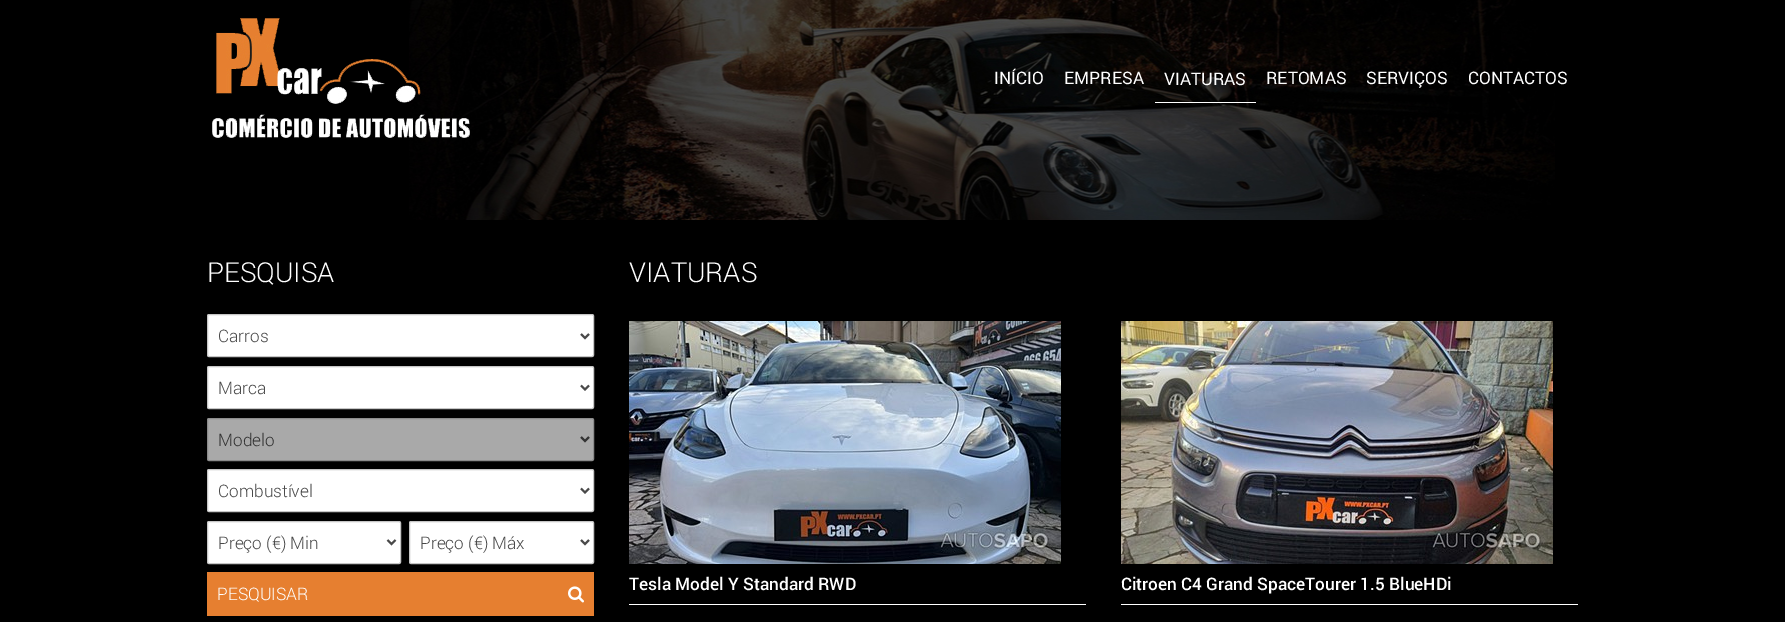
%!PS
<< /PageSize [1785 622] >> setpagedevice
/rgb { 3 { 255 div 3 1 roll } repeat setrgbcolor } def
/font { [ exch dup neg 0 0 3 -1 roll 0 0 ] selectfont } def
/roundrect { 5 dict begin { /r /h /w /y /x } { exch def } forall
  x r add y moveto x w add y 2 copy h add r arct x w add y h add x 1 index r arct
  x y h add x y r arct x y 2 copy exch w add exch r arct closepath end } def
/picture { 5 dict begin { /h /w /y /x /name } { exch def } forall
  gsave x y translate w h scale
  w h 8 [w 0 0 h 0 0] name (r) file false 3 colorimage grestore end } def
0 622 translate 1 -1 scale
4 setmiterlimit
0 0 0 rgb
0 0 1785 622 rectfill
(img/1.rgb) 409 0 1146 220 picture
(img/2.rgb) 212 18 258 120 picture
255 255 255 rgb
1155 102 101 1 rectfill
207.5 314.5 386 42 1.5 roundrect gsave fill grestore
198 198 198 rgb
stroke
73 73 73 rgb
2 setlinewidth
581 334 moveto 585 338 lineto 589 334 lineto stroke
255 255 255 rgb
207.5 366.5 386 42 1.5 roundrect gsave fill grestore
198 198 198 rgb
1 setlinewidth
stroke
73 73 73 rgb
2 setlinewidth
581 385.5 moveto 585 389.5 lineto 589 385.5 lineto stroke
169 169 169 rgb
207.5 418.5 386 42 1.5 roundrect gsave fill grestore
139 139 139 rgb
1 setlinewidth
stroke
51 51 51 rgb
2 setlinewidth
581 437 moveto 585 441 lineto 589 437 lineto stroke
255 255 255 rgb
207.5 469.5 386 42 1.5 roundrect gsave fill grestore
198 198 198 rgb
1 setlinewidth
stroke
73 73 73 rgb
2 setlinewidth
581 488.5 moveto 585 492.5 lineto 589 488.5 lineto stroke
255 255 255 rgb
207.5 521.5 193 42 1.5 roundrect gsave fill grestore
198 198 198 rgb
1 setlinewidth
stroke
73 73 73 rgb
2 setlinewidth
387.5 540 moveto 391.5 544 lineto 395.5 540 lineto stroke
255 255 255 rgb
409.5 521.5 184 42 1.5 roundrect gsave fill grestore
198 198 198 rgb
1 setlinewidth
stroke
73 73 73 rgb
2 setlinewidth
581 540 moveto 585 544 lineto 589 540 lineto stroke
230 127 48 rgb
207 572 387 44 rectfill
(img/3.rgb) 568 586 16 17 picture
(img/4.rgb) 629 321 432 243 picture
255 255 255 rgb
629 604 457 1 rectfill
(img/5.rgb) 1121 321 432 243 picture
1121 604 457 1 rectfill
/Roboto-Regular 17.25 font
[
  [(INÍCIO) 994 84]
  [(EMPRESA) 1064 84]
  [(VIATURAS) 1164 85]
  [(RETOMAS) 1266 84]
  [(SERVIÇOS) 1366 84]
  [(CONTACTOS) 1468 84]
] { aload pop moveto show } forall
/Roboto-Light 27.5 font
207 282 moveto (PESQUISA) show
/Roboto-Light 17.25 font
73 73 73 rgb
218 342 moveto (Carros) show
218 394 moveto (Marca) show
51 51 51 rgb
218 446 moveto (Modelo) show
73 73 73 rgb
[
  [(Combustível) 218 497]
  [(Preço \(€\) Min) 218 549]
  [(Preço \(€\) Máx) 420 549]
] { aload pop moveto show } forall
255 255 255 rgb
217 600 moveto (PESQUISAR) show
/Roboto-Light 27.5 font
629 282 moveto (VIATURAS) show
/Roboto-Medium 17.25 font
629 590 moveto (Tesla Model Y Standard RWD) show
1121 590 moveto (Citroen C4 Grand SpaceTourer 1.5 BlueHDi) show
showpage
